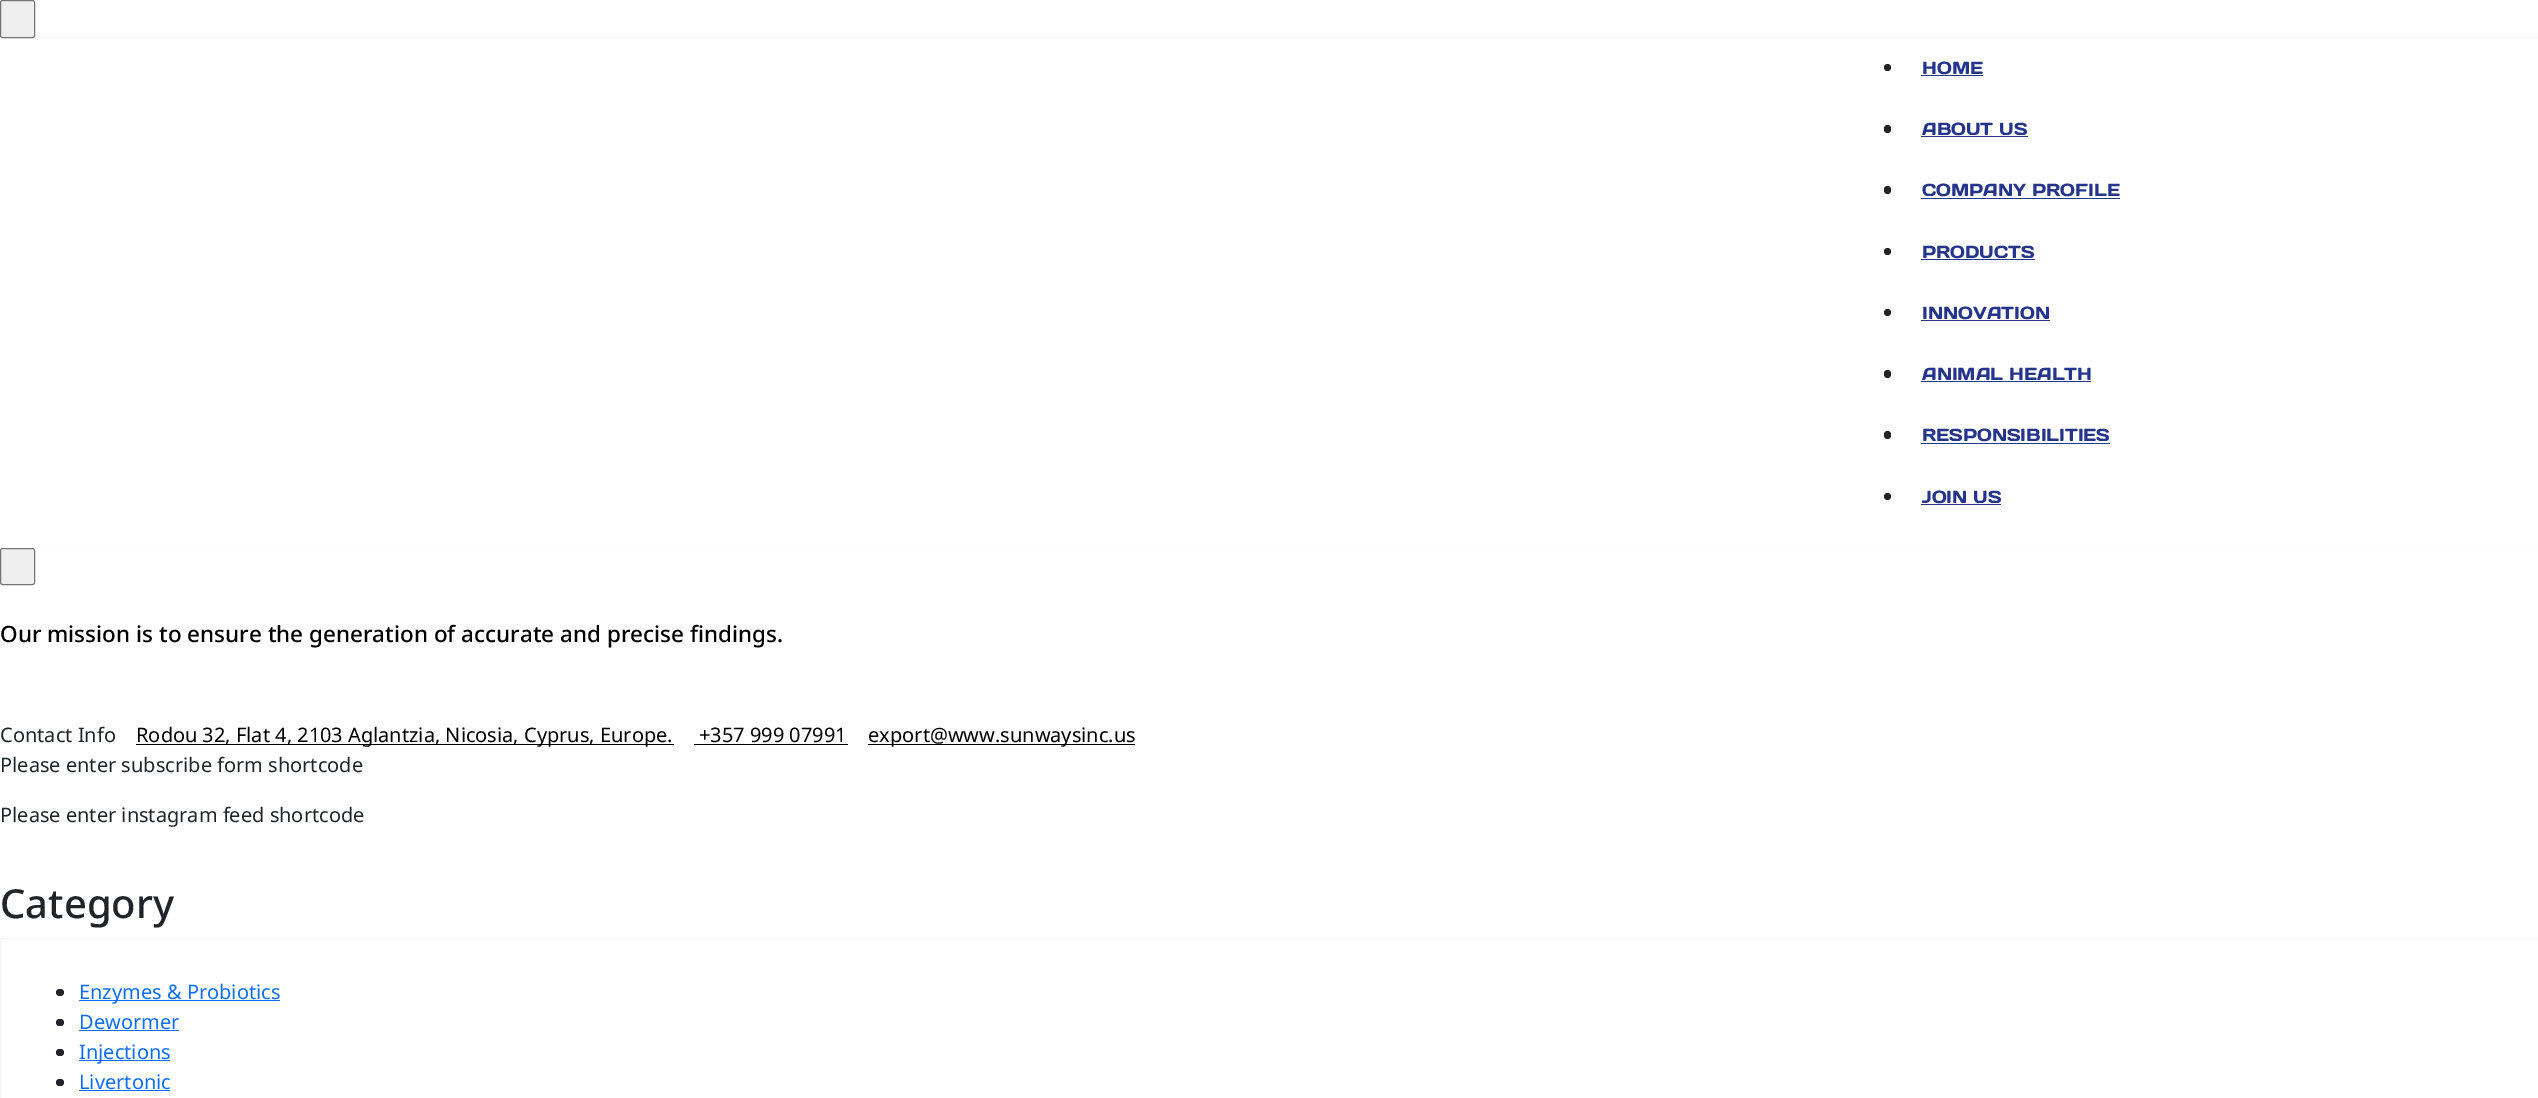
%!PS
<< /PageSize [2538 1098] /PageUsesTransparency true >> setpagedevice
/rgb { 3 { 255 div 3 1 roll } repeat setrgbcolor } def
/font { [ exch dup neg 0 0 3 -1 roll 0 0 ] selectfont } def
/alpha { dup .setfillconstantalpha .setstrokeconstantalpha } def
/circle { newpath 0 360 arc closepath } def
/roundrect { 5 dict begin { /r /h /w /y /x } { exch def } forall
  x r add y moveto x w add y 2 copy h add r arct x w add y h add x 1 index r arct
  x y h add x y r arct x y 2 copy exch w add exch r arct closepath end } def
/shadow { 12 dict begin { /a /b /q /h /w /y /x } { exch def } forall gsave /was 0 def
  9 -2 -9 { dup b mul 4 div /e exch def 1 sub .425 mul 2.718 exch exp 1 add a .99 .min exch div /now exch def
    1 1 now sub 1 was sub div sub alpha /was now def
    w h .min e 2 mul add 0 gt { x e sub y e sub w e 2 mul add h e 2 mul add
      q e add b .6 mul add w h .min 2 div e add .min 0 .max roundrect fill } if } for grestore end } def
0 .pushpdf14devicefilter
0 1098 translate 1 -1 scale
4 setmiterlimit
255 255 255 rgb
0 0 2538 1098 rectfill
gsave
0 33 moveto 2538 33 lineto 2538 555 lineto 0 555 lineto closepath 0 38 moveto 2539 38 lineto 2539 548 lineto 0 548 lineto closepath eoclip newpath
0 0 0 rgb
1 39 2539 510 0 1.5 0.15 shadow
grestore
239 239 239 rgb
0.5 0.5 34 37 2 roundrect gsave fill grestore
118 118 118 rgb
stroke
33 37 41 rgb
1887.5 67.5 3.5 circle fill
37 53 139 rgb
1921 75 62 1 rectfill
33 37 41 rgb
1884 125 7 8 3.5 roundrect fill
37 53 139 rgb
1921 136 107 1 rectfill
33 37 41 rgb
1884 186 7 8 3.5 roundrect fill
37 53 139 rgb
1921 198 199 1 rectfill
33 37 41 rgb
1887.5 251.5 3.5 circle fill
37 53 139 rgb
1921 259 114 1 rectfill
33 37 41 rgb
1887.5 312.5 3.5 circle fill
37 53 139 rgb
1921 320 129 1 rectfill
33 37 41 rgb
1884 370 7 8 3.5 roundrect fill
37 53 139 rgb
1921 381 170 1 rectfill
33 37 41 rgb
1884 431 7 8 3.5 roundrect fill
37 53 139 rgb
1921 443 189 1 rectfill
33 37 41 rgb
1887.5 496.5 3.5 circle fill
37 53 139 rgb
1921 504 80 1 rectfill
255 255 255 rgb
0 548 2538 3 rectfill
239 239 239 rgb
0.5 548.5 34 36 2 roundrect gsave fill grestore
118 118 118 rgb
stroke
[
  [136 744 538 1 0 0 0]
  [694 744 154 1 0 0 0]
  [868 744 267 1 0 0 0]
] { aload pop rgb rectfill } forall
242 245 250 rgb
0.5 938.5 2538 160 rectstroke
33 37 41 rgb
56 989 8 7 3.5 roundrect fill
13 110 253 rgb
79 1000 201 1 rectfill
33 37 41 rgb
56 1019 8 7 3.5 roundrect fill
13 110 253 rgb
79 1030 100 1 rectfill
33 37 41 rgb
56 1049 8 7 3.5 roundrect fill
13 110 253 rgb
79 1060 91 1 rectfill
33 37 41 rgb
56 1079 8 7 3.5 roundrect fill
13 110 253 rgb
79 1090 91 1 rectfill
/DaysOne-Regular 17.5 font
37 53 139 rgb
[
  [(HOME) 1922 74]
  [(ABOUT US) 1922 135]
  [(COMPANY PROFILE) 1922 196]
  [(PRODUCTS) 1922 258]
  [(INNOVATION) 1922 319]
  [(ANIMAL HEALTH) 1922 380]
  [(RESPONSIBILITIES) 1922 441]
  [(JOIN US) 1922 503]
] { aload pop moveto show } forall
/NotoSans-Medium 22.5 font
0 0 0 rgb
0 642 moveto (Our mission is to ensure the generation of accurate and precise findings.) show
/NotoSans-Regular 20 font
33 37 41 rgb
0 742 moveto (Contact Info) show
0 0 0 rgb
[
  [(Rodou 32, Flat 4, 2103 Aglantzia, Nicosia, Cyprus, Europe.) 136 742]
  [(+357 999 07991) 699 742]
  [(export@www.sunwaysinc.us) 868 742]
] { aload pop moveto show } forall
33 37 41 rgb
0 772 moveto (Please enter subscribe form shortcode) show
0 822 moveto (Please enter instagram feed shortcode) show
/NotoSans-Medium 40 font
0 918 moveto (Category) show
/NotoSans-Regular 20 font
13 110 253 rgb
[
  [(Enzymes & Probiotics) 79 999]
  [(Dewormer) 79 1029]
  [(Injections) 79 1059]
  [(Livertonic) 79 1089]
] { aload pop moveto show } forall
.poppdf14devicefilter showpage
